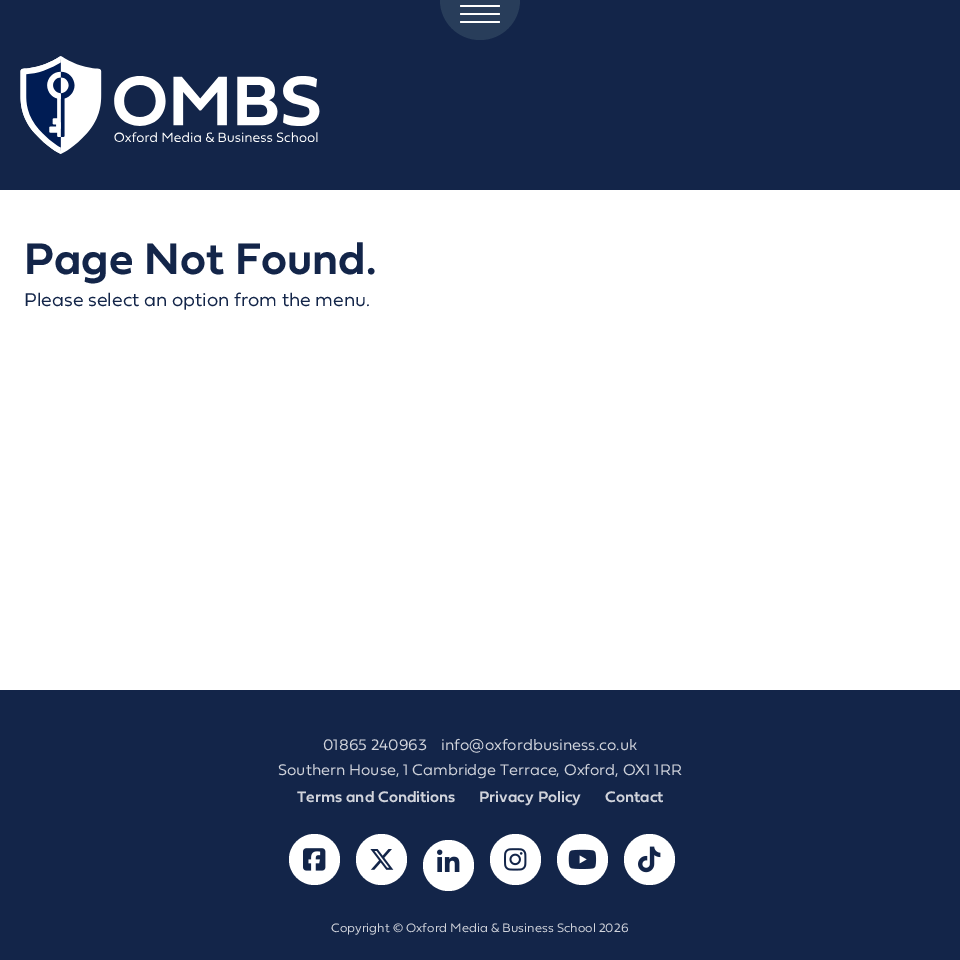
%!PS
<< /PageSize [960 960] >> setpagedevice
/rgb { 3 { 255 div 3 1 roll } repeat setrgbcolor } def
/font { [ exch dup neg 0 0 3 -1 roll 0 0 ] selectfont } def
/circle { newpath 0 360 arc closepath } def
/roundrect { 5 dict begin { /r /h /w /y /x } { exch def } forall
  x r add y moveto x w add y 2 copy h add r arct x w add y h add x 1 index r arct
  x y h add x y r arct x y 2 copy exch w add exch r arct closepath end } def
/picture { 5 dict begin { /h /w /y /x /name } { exch def } forall
  gsave x y translate w h scale
  w h 8 [w 0 0 h 0 0] name (r) file false 3 colorimage grestore end } def
0 960 translate 1 -1 scale
4 setmiterlimit
255 255 255 rgb
0 0 960 960 rectfill
19 37 73 rgb
0 0 960 190 rectfill
40 61 90 rgb
480 0 40 circle fill
255 255 255 rgb
460 5 40 2 1 roundrect fill
460 13 40 2 1 roundrect fill
460 21 40 2 1 roundrect fill
(img/1.rgb) 20 56 300 98 picture
19 37 73 rgb
0 690 960 270 rectfill
255 255 255 rgb
314.5 859.5 25.5 circle fill
(img/2.rgb) 303 848 23 23 picture
381.5 859.5 25.5 circle fill
(img/3.rgb) 370 849 24 21 picture
448.5 865.5 25.5 circle fill
(img/4.rgb) 437 849 23 23 picture
515.5 859.5 25.5 circle fill
(img/5.rgb) 504 848 23 23 picture
582.5 859.5 25.5 circle fill
(img/6.rgb) 568 849 29 20 picture
649.5 859.5 25.5 circle fill
(img/7.rgb) 638 846 23 27 picture
/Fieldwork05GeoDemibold-SemiBold 46 font
19 37 73 rgb
24 274 moveto (Page Not Found.) show
/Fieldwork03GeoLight-Light 19.25 font
24 306 moveto (Please select an option from the menu.) show
/Fieldwork03GeoLight-Light 16 font
208 211 219 rgb
[
  [(01865 240963) 323 750]
  [(info@oxfordbusiness.co.uk) 441 750]
  [(Southern House, 1 Cambridge Terrace, Oxford, OX1 1RR) 278 775]
] { aload pop moveto show } forall
/Fieldwork05GeoDemibold-SemiBold 16 font
[
  [(Terms and Conditions) 297 802]
  [(Privacy Policy) 479 802]
  [(Contact) 605 802]
] { aload pop moveto show } forall
/Fieldwork03GeoLight-Light 12.8 font
331 932 moveto (Copyright © Oxford Media & Business School 2026) show
showpage
